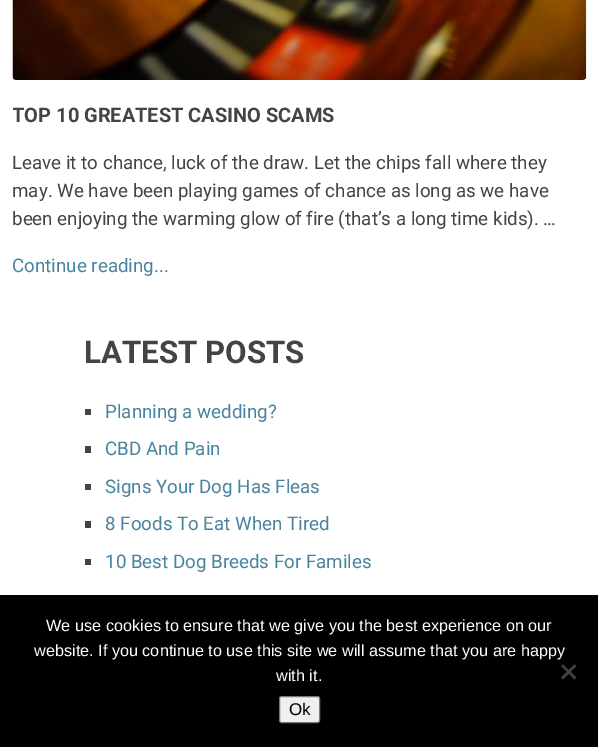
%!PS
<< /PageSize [598 747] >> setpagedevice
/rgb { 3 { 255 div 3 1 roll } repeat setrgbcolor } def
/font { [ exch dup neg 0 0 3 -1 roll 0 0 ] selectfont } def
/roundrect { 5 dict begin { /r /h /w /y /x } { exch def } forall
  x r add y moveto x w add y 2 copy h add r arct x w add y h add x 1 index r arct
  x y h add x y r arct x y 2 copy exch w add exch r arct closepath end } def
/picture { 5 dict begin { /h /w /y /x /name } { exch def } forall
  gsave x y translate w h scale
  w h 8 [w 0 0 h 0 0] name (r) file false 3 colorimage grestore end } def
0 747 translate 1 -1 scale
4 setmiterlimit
255 255 255 rgb
0 0 598 747 rectfill
(img/1.rgb) 12 0 575 80 picture
[
  [85 409 6 6 68 68 68]
  [85 446 6 7 68 68 68]
  [85 484 6 6 68 68 68]
  [85 521 6 7 68 68 68]
  [85 559 6 6 68 68 68]
  [0 595 598 152 0 0 0]
] { aload pop rgb rectfill } forall
64 64 64 rgb
574.5 664.5 moveto 576.5 666 lineto 563 679.5 lineto 561 677.5 lineto closepath fill
561 666 moveto 563 664.5 lineto 576.5 677.5 lineto 574.5 679.5 lineto closepath fill
239 239 239 rgb
279.5 696.5 40 26 2 roundrect gsave fill grestore
118 118 118 rgb
stroke
gsave
13 99 573 31 rectclip
/Roboto-Bold 20 font
68 68 68 rgb
12 122 moveto (TOP 10 GREATEST CASINO SCAMS) show
grestore
/Roboto-Regular 18.75 font
68 68 68 rgb
[
  [(Leave it to chance, luck of the draw. Let the chips fall where they) 12 169]
  [(may. We have been playing games of chance as long as we have) 12 197]
  [(been enjoying the warming glow of fire \(that’s a long time kids\). …) 12 225]
] { aload pop moveto show } forall
72 132 158 rgb
12 272 moveto (Continue reading...) show
/Roboto-Bold 31.25 font
68 68 68 rgb
84 363 moveto (LATEST POSTS) show
/Roboto-Regular 18.75 font
72 132 158 rgb
[
  [(Planning a wedding?) 105 418]
  [(CBD And Pain) 105 455]
  [(Signs Your Dog Has Fleas) 105 493]
  [(8 Foods To Eat When Tired) 105 530]
  [(10 Best Dog Breeds For Familes) 105 568]
] { aload pop moveto show } forall
/LiberationSans-Regular 16.25 font
255 255 255 rgb
[
  [(We use cookies to ensure that we give you the best experience on our) 46 631]
  [(website. If you continue to use this site we will assume that you are happy) 34 656]
  [(with it.) 276 681]
] { aload pop moveto show } forall
/LiberationSans-Regular 17 font
0 0 0 rgb
289 715 moveto (Ok) show
showpage
